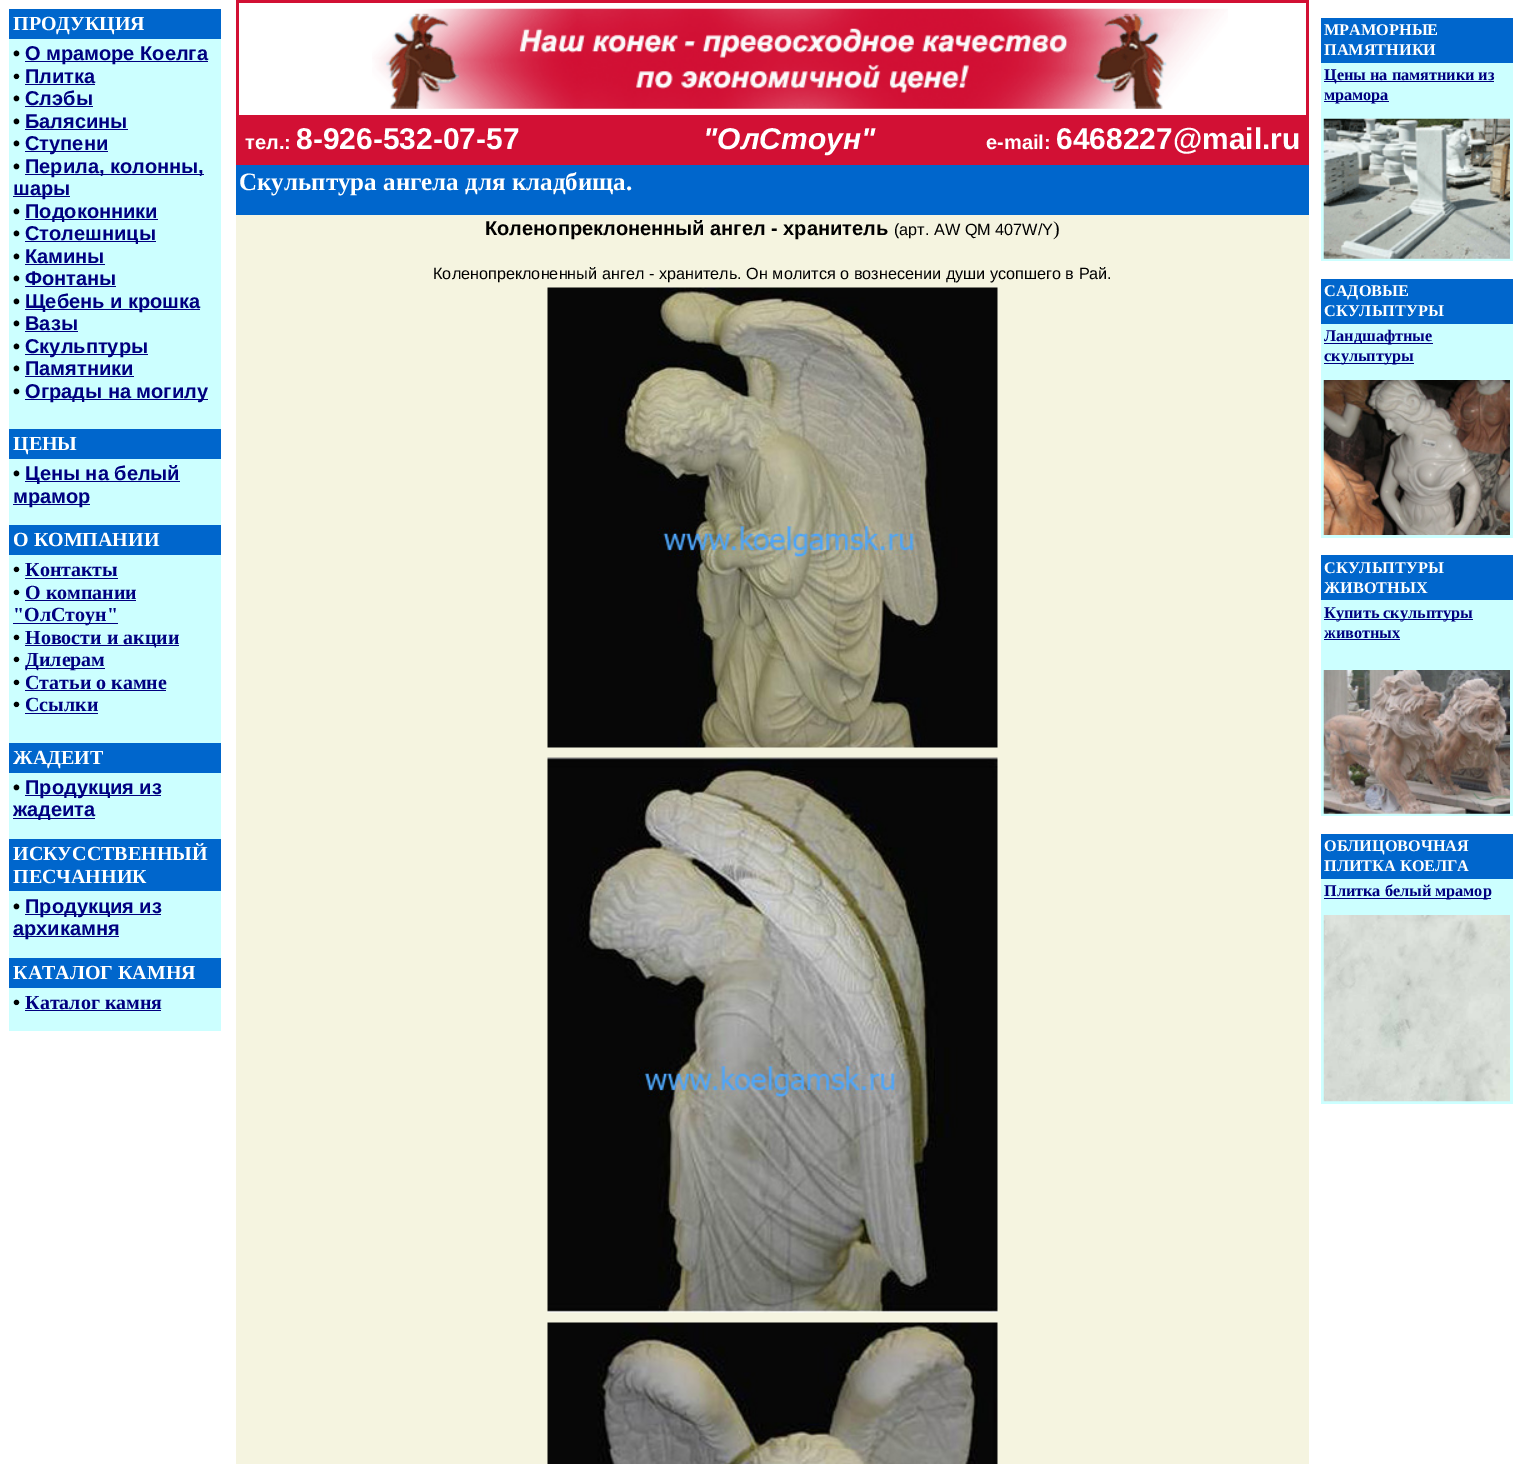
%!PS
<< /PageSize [1525 1464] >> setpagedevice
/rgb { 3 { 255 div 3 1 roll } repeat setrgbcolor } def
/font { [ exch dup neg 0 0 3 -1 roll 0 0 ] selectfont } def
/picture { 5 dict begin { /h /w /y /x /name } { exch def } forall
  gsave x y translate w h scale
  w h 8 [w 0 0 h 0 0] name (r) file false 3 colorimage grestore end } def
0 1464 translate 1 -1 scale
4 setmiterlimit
255 255 255 rgb
0 0 1525 1464 rectfill
[
  [9 9 212 30 0 102 204]
  [9 39 212 390 204 255 255]
  [25 61 183 1 0 0 128]
  [25 84 70 1 0 0 128]
  [25 106 68 1 0 0 128]
  [25 129 103 1 0 0 128]
  [25 151 83 1 0 0 128]
  [25 174 179 1 0 0 128]
  [13 196 57 1 0 0 128]
  [25 219 133 1 0 0 128]
  [25 241 131 1 0 0 128]
  [25 264 80 1 0 0 128]
  [25 286 91 1 0 0 128]
  [25 309 175 1 0 0 128]
  [25 331 53 1 0 0 128]
  [25 354 123 1 0 0 128]
  [25 376 109 1 0 0 128]
  [25 399 183 1 0 0 128]
  [9 429 212 30 0 102 204]
  [9 459 212 66 204 255 255]
  [25 481 155 1 0 0 128]
  [13 504 77 1 0 0 128]
  [9 525 212 30 0 102 204]
  [9 555 212 188 204 255 255]
  [25 578 93 1 0 0 128]
  [25 600 111 1 0 0 128]
  [13 623 105 1 0 0 128]
  [25 645 154 1 0 0 128]
  [25 668 80 1 0 0 128]
  [25 690 141 1 0 0 128]
  [25 713 73 1 0 0 128]
  [9 743 212 30 0 102 204]
  [9 773 212 66 204 255 255]
  [25 795 136 1 0 0 128]
  [13 818 82 1 0 0 128]
  [9 839 212 52 0 102 204]
  [9 891 212 67 204 255 255]
  [25 914 136 1 0 0 128]
  [13 936 106 1 0 0 128]
  [9 958 212 30 0 102 204]
  [9 988 212 43 204 255 255]
  [25 1010 136 1 0 0 128]
  [236 0 1073 165 210 16 52]
  [239 3 1067 112 255 255 255]
] { aload pop rgb rectfill } forall
(img/1.rgb) 372 8 856 101 picture
0 102 204 rgb
236 165 1073 50 rectfill
245 244 224 rgb
236 215 1073 1249 rectfill
(img/2.rgb) 547 287 451 461 picture
(img/3.rgb) 547 757 451 556 picture
(img/4.rgb) 547 1322 451 142 picture
[
  [1321 18 192 45 0 102 204]
  [1321 63 192 198 204 255 255]
  [1324 81 170 1 0 0 128]
  [1324 101 65 1 0 0 128]
] { aload pop rgb rectfill } forall
(img/5.rgb) 1323 118 187 141 picture
[
  [1321 279 192 45 0 102 204]
  [1321 324 192 214 204 255 255]
  [1324 343 109 1 0 0 128]
  [1324 363 90 1 0 0 128]
] { aload pop rgb rectfill } forall
(img/6.rgb) 1323 380 187 155 picture
[
  [1321 555 192 45 0 102 204]
  [1321 600 192 216 204 255 255]
  [1324 619 149 1 0 0 128]
  [1324 639 76 1 0 0 128]
] { aload pop rgb rectfill } forall
(img/7.rgb) 1323 670 187 144 picture
[
  [1321 834 192 45 0 102 204]
  [1321 879 192 225 204 255 255]
  [1324 898 167 1 0 0 128]
] { aload pop rgb rectfill } forall
(img/8.rgb) 1323 915 187 187 picture
/LiberationSerif-Bold 20 font
255 255 255 rgb
13 30 moveto (ПРОДУКЦИЯ) show
/LiberationSans-Bold 20 font
0 0 0 rgb
13 60 moveto (•) show
0 0 128 rgb
25 60 moveto (О мраморе Коелга) show
/LiberationSans-Regular 20 font
0 0 0 rgb
13 83 moveto (•) show
/LiberationSans-Bold 20 font
0 0 128 rgb
25 83 moveto (Плитка) show
0 0 0 rgb
13 105 moveto (•) show
0 0 128 rgb
25 105 moveto (Слэбы) show
0 0 0 rgb
13 128 moveto (•) show
0 0 128 rgb
25 128 moveto (Балясины) show
0 0 0 rgb
13 150 moveto (•) show
0 0 128 rgb
25 150 moveto (Ступени) show
0 0 0 rgb
13 173 moveto (•) show
0 0 128 rgb
25 173 moveto (Перила, колонны,) show
13 195 moveto (шары) show
0 0 0 rgb
13 218 moveto (•) show
0 0 128 rgb
25 218 moveto (Подоконники) show
0 0 0 rgb
13 240 moveto (•) show
0 0 128 rgb
25 240 moveto (Столешницы) show
0 0 0 rgb
13 263 moveto (•) show
0 0 128 rgb
25 263 moveto (Камины) show
0 0 0 rgb
13 285 moveto (•) show
0 0 128 rgb
25 285 moveto (Фонтаны) show
0 0 0 rgb
13 308 moveto (•) show
0 0 128 rgb
25 308 moveto (Щебень и крошка) show
0 0 0 rgb
13 330 moveto (•) show
0 0 128 rgb
25 330 moveto (Вазы) show
0 0 0 rgb
13 353 moveto (•) show
0 0 128 rgb
25 353 moveto (Скульптуры) show
0 0 0 rgb
13 375 moveto (•) show
0 0 128 rgb
25 375 moveto (Памятники) show
0 0 0 rgb
13 398 moveto (•) show
0 0 128 rgb
25 398 moveto (Ограды на могилу) show
/LiberationSerif-Bold 20 font
255 255 255 rgb
13 450 moveto (ЦЕНЫ) show
/LiberationSans-Bold 20 font
0 0 0 rgb
13 480 moveto (•) show
0 0 128 rgb
25 480 moveto (Цены на белый) show
13 503 moveto (мрамор) show
/LiberationSerif-Bold 20 font
255 255 255 rgb
13 546 moveto (О КОМПАНИИ) show
0 0 0 rgb
13 576 moveto (•) show
0 0 128 rgb
25 576 moveto (Контакты) show
0 0 0 rgb
13 599 moveto (•) show
0 0 128 rgb
25 599 moveto (О компании) show
13 621 moveto ("ОлСтоун") show
0 0 0 rgb
13 644 moveto (•) show
0 0 128 rgb
25 644 moveto (Новости и акции) show
0 0 0 rgb
13 666 moveto (•) show
0 0 128 rgb
25 666 moveto (Дилерам) show
0 0 0 rgb
13 689 moveto (•) show
0 0 128 rgb
25 689 moveto (Статьи о камне) show
0 0 0 rgb
13 711 moveto (•) show
0 0 128 rgb
25 711 moveto (Ссылки) show
255 255 255 rgb
13 764 moveto (ЖАДЕИТ) show
/LiberationSans-Bold 20 font
0 0 0 rgb
13 794 moveto (•) show
0 0 128 rgb
25 794 moveto (Продукция из) show
13 816 moveto (жадеита) show
/LiberationSerif-Bold 20 font
255 255 255 rgb
13 860 moveto (ИСКУССТВЕННЫЙ) show
13 883 moveto (ПЕСЧАННИК) show
/LiberationSans-Bold 20 font
0 0 0 rgb
13 913 moveto (•) show
0 0 128 rgb
25 913 moveto (Продукция из) show
13 935 moveto (архикамня) show
/LiberationSerif-Bold 20 font
255 255 255 rgb
13 979 moveto (КАТАЛОГ КАМНЯ) show
0 0 0 rgb
13 1009 moveto (•) show
0 0 128 rgb
25 1009 moveto (Каталог камня) show
/LiberationSans-Bold 20 font
255 255 255 rgb
245 149 moveto (тел.:) show
/LiberationSans-Bold 30 font
296 149 moveto (8-926-532-07-57) show
/LiberationSans-BoldItalic 30 font
703 149 moveto ("ОлСтоун") show
/LiberationSans-Bold 20 font
986 149 moveto (e-mail:) show
/LiberationSans-Bold 30 font
1056 149 moveto (6468227@mail.ru) show
/LiberationSerif-Bold 25 font
239 190 moveto (Скульптура ангела для кладбища.) show
/LiberationSans-Bold 20 font
0 0 0 rgb
485 235 moveto (Коленопреклоненный ангел - хранитель) show
/LiberationSans-Regular 16.25 font
894 235 moveto (\(арт. AW QM 407W/Y) show
/LiberationSerif-Regular 20 font
1053 235 moveto (\)) show
/LiberationSans-Regular 16.25 font
433 279 moveto (Коленопреклоненный ангел - хранитель. Он молится о вознесении души усопшего в Рай.) show
/LiberationSerif-Bold 16.25 font
255 255 255 rgb
1324 35 moveto (МРАМОРНЫЕ) show
1324 55 moveto (ПАМЯТНИКИ) show
0 0 128 rgb
1324 80 moveto (Цены на памятники из) show
1324 100 moveto (мрамора) show
255 255 255 rgb
1324 296 moveto (САДОВЫЕ) show
1324 316 moveto (СКУЛЬПТУРЫ) show
0 0 128 rgb
1324 341 moveto (Ландшафтные) show
1324 361 moveto (скульптуры) show
255 255 255 rgb
1324 573 moveto (СКУЛЬПТУРЫ) show
1324 593 moveto (ЖИВОТНЫХ) show
0 0 128 rgb
1324 618 moveto (Купить скульптуры) show
1324 638 moveto (животных) show
255 255 255 rgb
1324 851 moveto (ОБЛИЦОВОЧНАЯ) show
1324 871 moveto (ПЛИТКА КОЕЛГА) show
0 0 128 rgb
1324 896 moveto (Плитка белый мрамор) show
showpage
